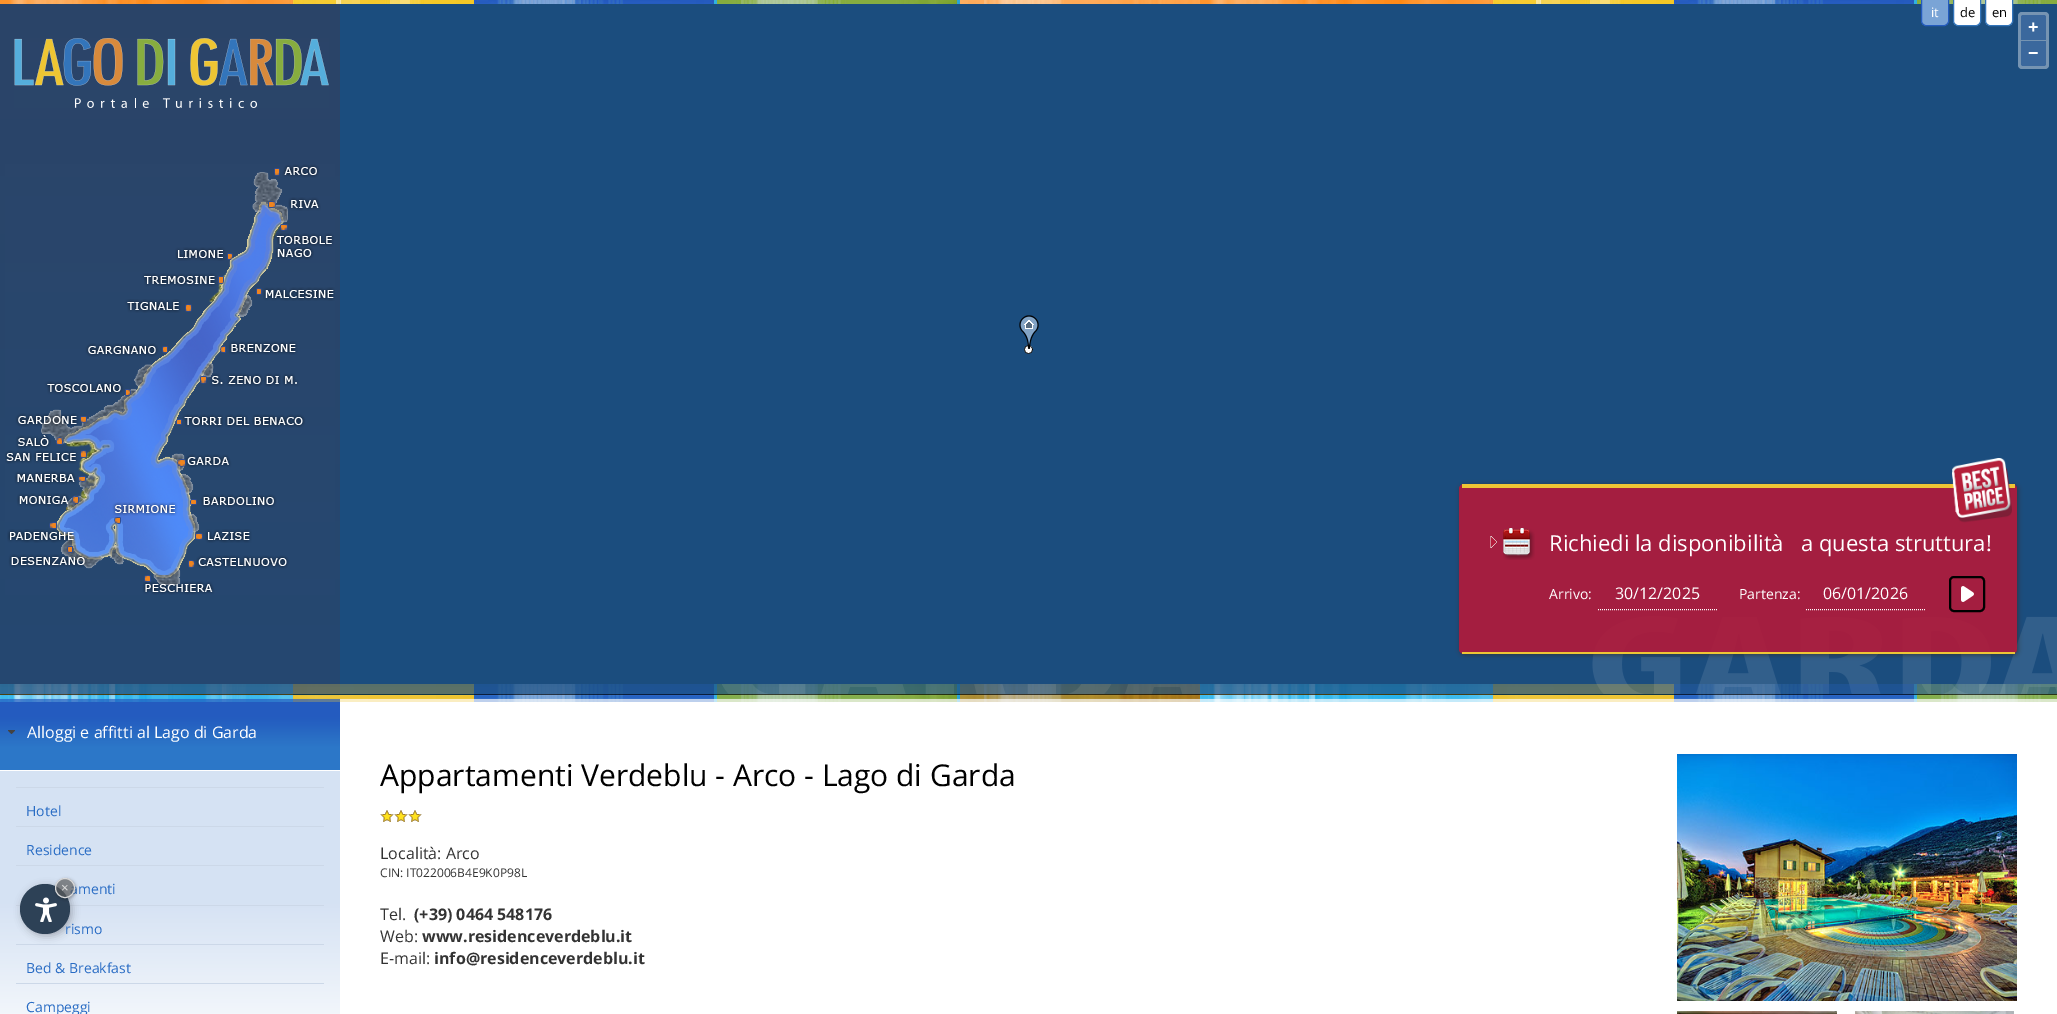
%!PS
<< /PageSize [2057 1014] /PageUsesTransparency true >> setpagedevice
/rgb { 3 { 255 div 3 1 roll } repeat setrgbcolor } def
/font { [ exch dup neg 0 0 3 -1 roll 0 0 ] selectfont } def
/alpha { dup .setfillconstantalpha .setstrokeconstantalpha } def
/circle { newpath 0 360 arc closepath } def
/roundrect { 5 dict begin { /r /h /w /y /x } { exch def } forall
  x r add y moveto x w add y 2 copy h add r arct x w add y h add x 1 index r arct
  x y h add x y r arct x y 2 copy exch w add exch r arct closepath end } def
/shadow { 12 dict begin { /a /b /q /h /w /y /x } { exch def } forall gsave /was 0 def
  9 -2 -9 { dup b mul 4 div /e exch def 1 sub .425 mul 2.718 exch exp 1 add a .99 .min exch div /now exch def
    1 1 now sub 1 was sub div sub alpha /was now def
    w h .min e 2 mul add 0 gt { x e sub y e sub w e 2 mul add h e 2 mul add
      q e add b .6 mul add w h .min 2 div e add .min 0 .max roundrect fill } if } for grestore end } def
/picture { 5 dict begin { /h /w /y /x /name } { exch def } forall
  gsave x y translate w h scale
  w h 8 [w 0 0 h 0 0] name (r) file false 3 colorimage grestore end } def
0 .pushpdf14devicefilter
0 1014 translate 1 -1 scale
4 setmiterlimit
255 255 255 rgb
0 0 2057 1014 rectfill
gsave 0 4 moveto 340 4 lineto 340 694 lineto 0 694 lineto closepath clip newpath
<< /ShadingType 2 /ColorSpace /DeviceRGB /Coords [170 4 170 694] /Extend [true true] /Function << /FunctionType 2 /Domain [0 1] /C0 [0.169 0.267 0.408] /C1 [0.145 0.282 0.443] /N 1 >> >> shfill grestore
(img/1.rgb) 14 38 315 70 picture
(img/2.rgb) 5 164 330 431 picture
(img/3.rgb) 0 0 2057 4 picture
27 77 126 rgb
340 4 1717 690 rectfill
122 164 214 rgb
1921.5 -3.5 moveto 1948.5 -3.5 lineto 1948.5 21 lineto 1948.5 23.5 1946.5 25.5 1944 25.5 curveto 1926 25.5 lineto 1923.5 25.5 1921.5 23.5 1921.5 21 curveto closepath gsave fill grestore
36 91 191 rgb
stroke
255 255 255 rgb
1953.5 -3.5 moveto 1980.5 -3.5 lineto 1980.5 21 lineto 1980.5 23.5 1978.5 25.5 1976 25.5 curveto 1958 25.5 lineto 1955.5 25.5 1953.5 23.5 1953.5 21 curveto closepath gsave fill grestore
51 117 187 rgb
stroke
255 255 255 rgb
1985.5 -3.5 moveto 2012.5 -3.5 lineto 2012.5 21 lineto 2012.5 23.5 2010.5 25.5 2008 25.5 curveto 1990 25.5 lineto 1987.5 25.5 1985.5 23.5 1985.5 21 curveto closepath gsave fill grestore
51 117 187 rgb
stroke
118 148 178 rgb
2018 12 31 57 4 roundrect fill
59 104 157 rgb
2023 15 moveto 2044 15 lineto 2045 15 2046 16 2046 17 curveto 2046 40 lineto 2021 40 lineto 2021 17 lineto 2021 16 2022 15 2023 15 curveto closepath fill
2021 41 moveto 2046 41 lineto 2046 64 lineto 2046 65 2045 66 2044 66 curveto 2023 66 lineto 2022 66 2021 65 2021 64 curveto closepath fill
(img/4.rgb) 1019 315 20 39 picture
(img/9.rgb) 1592 616 465 78 picture
gsave
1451 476 moveto 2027 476 lineto 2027 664 lineto 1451 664 lineto closepath 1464 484 moveto 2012 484 lineto 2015 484 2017 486 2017 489 curveto 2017 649 lineto 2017 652 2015 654 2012 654 curveto 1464 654 lineto 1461 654 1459 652 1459 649 curveto 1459 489 lineto 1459 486 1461 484 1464 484 curveto closepath eoclip newpath
50 50 50 rgb
1460 485 558 170 5 2.5 0.75 shadow
grestore
0.9 alpha
179 25 57 rgb
1459 484 558 170 5 roundrect fill
1 alpha
238 197 53 rgb
1462 484 553 4 rectfill
1462 652 553 2 rectfill
(img/5.rgb) 1952 458 60 65 picture
(img/6.rgb) 1490 536 7 12 picture
(img/7.rgb) 1503 528 32 32 picture
255 255 255 rgb
[1 1] 0 setdash
1598 609.5 moveto 1718 609.5 lineto stroke
1806 609.5 moveto 1926 609.5 lineto stroke
(img/8.rgb) 1961 586 13 16 picture
0 0 0 rgb
2 setlinewidth
[] 0 setdash
1950 577 34 34 4 roundrect stroke
gsave 4 694 moveto 336 694 lineto 338 694 340 696 340 698 curveto 340 770 lineto 0 770 lineto 0 698 lineto 0 696 2 694 4 694 curveto closepath clip newpath
<< /ShadingType 2 /ColorSpace /DeviceRGB /Coords [170 694 170 770] /Extend [true true] /Function << /FunctionType 3 /Domain [0 1] /Functions [<< /FunctionType 2 /Domain [0 1] /C0 [0.141 0.357 0.749] /C1 [0.141 0.357 0.749] /N 1 >> << /FunctionType 2 /Domain [0 1] /C0 [0.141 0.357 0.749] /C1 [0.173 0.467 0.784] /N 1 >> << /FunctionType 2 /Domain [0 1] /C0 [0.173 0.467 0.784] /C1 [0.173 0.467 0.784] /N 1 >>] /Bounds [0.3 0.7] /Encode [0 1 0 1 0 1] >> >> shfill grestore
(img/10.rgb) 0 684 2057 18 picture
(img/11.rgb) 8 730 7 4 picture
gsave 0 771 moveto 340 771 lineto 340 1014 lineto 0 1014 lineto closepath clip newpath
<< /ShadingType 2 /ColorSpace /DeviceRGB /Coords [170 771 170 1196] /Extend [true true] /Function << /FunctionType 3 /Domain [0 1] /Functions [<< /FunctionType 2 /Domain [0 1] /C0 [0.835 0.886 0.953] /C1 [0.835 0.886 0.953] /N 1 >> << /FunctionType 2 /Domain [0 1] /C0 [0.835 0.886 0.953] /C1 [1 1 1] /N 1 >> << /FunctionType 2 /Domain [0 1] /C0 [1 1 1] /C1 [1 1 1] /N 1 >>] /Bounds [0.3 0.7] /Encode [0 1 0 1 0 1] >> >> shfill grestore
[
  [16 787 308 1 204 216 232]
  [16 826 308 1 204 216 232]
  [16 865 308 1 204 216 232]
  [16 905 308 1 204 216 232]
  [16 944 308 1 204 216 232]
  [16 983 308 1 204 216 232]
] { aload pop rgb rectfill } forall
(img/12.rgb) 380 810 14 12 picture
(img/12.rgb) 394 810 14 12 picture
(img/12.rgb) 408 810 14 12 picture
(img/13.rgb) 1677 754 340 247 picture
(img/14.rgb) 1677 1011 160 3 picture
(img/15.rgb) 1855 1011 159 3 picture
0 0 0 rgb
22 886 50 50 25 4 0.25 shadow
/OpenSans-Regular 13 font
255 255 255 rgb
1931 17 moveto (it) show
0 0 0 rgb
1960 17 moveto (de) show
1992 17 moveto (en) show
/LiberationSans-Bold 18 font
255 255 255 rgb
2028 33 moveto (+) show
2028 59 moveto (−) show
/OpenSans-Regular 22 font
1549 551 moveto (Richiedi la disponibilità) show
1801 551 moveto (a questa struttura!) show
/OpenSans-Regular 14 font
1549 599 moveto (Arrivo:) show
/OpenSans-Regular 16 font
1615 599 moveto (30/12/2025) show
/OpenSans-Regular 14 font
1739 599 moveto (Partenza:) show
/OpenSans-Regular 16 font
1823 599 moveto (06/01/2026) show
27 738 moveto (Alloggi e affitti al Lago di Garda) show
/OpenSans-Regular 14 font
41 108 196 rgb
[
  [(Hotel) 26 816]
  [(Residence) 26 855]
  [(amenti) 70 894]
  [(rismo) 65 934]
  [(Bed & Breakfast) 26 973]
  [(Campeggi) 26 1012]
] { aload pop moveto show } forall
/OpenSans-Regular 30 font
0 0 0 rgb
380 786 moveto (Appartamenti Verdeblu - Arco - Lago di Garda) show
/OpenSans-Regular 16 font
51 51 51 rgb
380 859 moveto (Località: Arco) show
/OpenSans-Regular 12 font
380 877 moveto (CIN: IT022006B4E9K0P98L) show
/OpenSans-Regular 16 font
380 920 moveto (Tel.) show
/OpenSans-Bold 16 font
414 920 moveto (\(+39\) 0464 548176) show
/OpenSans-Regular 16 font
380 942 moveto (Web:) show
/OpenSans-Bold 16 font
422 942 moveto (www.residenceverdeblu.it) show
/OpenSans-Regular 16 font
380 964 moveto (E-mail:) show
/OpenSans-Bold 16 font
434 964 moveto (info@residenceverdeblu.it) show
45 65 86 rgb
45 909 25 circle fill
(img/16.rgb) 35 897 22 25 picture
gsave
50 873 moveto 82 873 lineto 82 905 lineto 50 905 lineto closepath 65 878 moveto 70.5 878 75 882.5 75 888 curveto 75 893.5 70.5 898 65 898 curveto 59.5 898 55 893.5 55 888 curveto 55 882.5 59.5 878 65 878 curveto closepath eoclip newpath
0 0 0 rgb
56 879 20 20 10 1.5 0.3 shadow
grestore
0.7 alpha
90 90 90 rgb
65 888 9.5 circle fill
1 alpha
218 218 218 rgb
1 setlinewidth
65 888 9.5 circle stroke
/LiberationSans-Regular 13 font
61 892 moveto (×) show
.poppdf14devicefilter showpage
